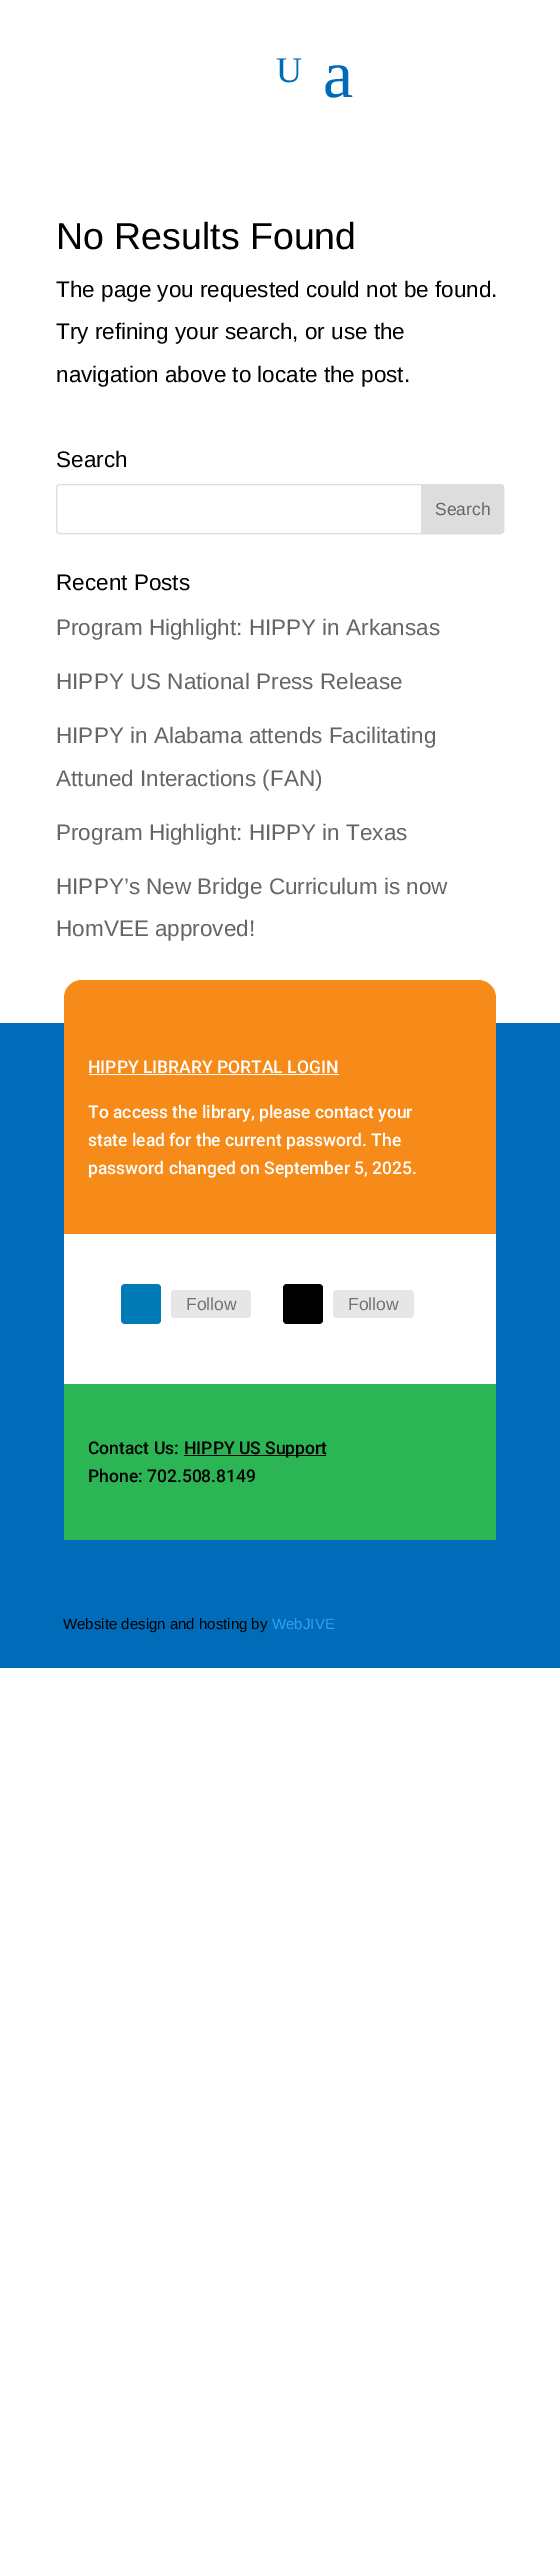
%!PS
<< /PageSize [560 2573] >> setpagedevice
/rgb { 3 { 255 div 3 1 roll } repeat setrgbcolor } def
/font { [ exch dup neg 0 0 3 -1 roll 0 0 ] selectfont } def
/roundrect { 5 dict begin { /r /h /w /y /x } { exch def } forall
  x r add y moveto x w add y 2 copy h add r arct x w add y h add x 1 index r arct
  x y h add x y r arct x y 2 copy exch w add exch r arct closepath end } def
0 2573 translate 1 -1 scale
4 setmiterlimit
255 255 255 rgb
0 0 560 2573 rectfill
221 221 221 rgb
56.5 484.5 447 49 3.5 roundrect stroke
421.5 484.5 moveto 500 484.5 lineto 502 484.5 503.5 486 503.5 488 curveto 503.5 530 lineto 503.5 532 502 533.5 500 533.5 curveto 421.5 533.5 lineto closepath gsave fill grestore
stroke
0 107 184 rgb
0 1023 560 645 rectfill
246 139 25 rgb
82 980 moveto 478 980 lineto 488 980 496 988 496 998 curveto 496 1234 lineto 64 1234 lineto 64 998 lineto 64 988 72 980 82 980 curveto closepath fill
255 255 255 rgb
89 1074 250 1 rectfill
64 1234 432 150 rectfill
0 123 182 rgb
121 1284 40 40 4 roundrect fill
230 230 230 rgb
171 1290 80 28 4 roundrect fill
0 0 0 rgb
283 1284 40 40 4 roundrect fill
230 230 230 rgb
333 1290 81 28 4 roundrect fill
44 181 85 rgb
64 1384 432 156 rectfill
0 0 0 rgb
184 1455 142 1 rectfill
/LiberationSerif-Regular 36 font
0 107 184 rgb
276 82 moveto (U) show
/LiberationSerif-Regular 68 font
323 97 moveto (a) show
/LiberationSans-Regular 37.5 font
0 0 0 rgb
56 249 moveto (No Results Found) show
/LiberationSans-Regular 22.5 font
[
  [(The page you requested could not be found.) 56 297]
  [(Try refining your search, or use the) 56 339]
  [(navigation above to locate the post.) 56 382]
  [(Search) 56 467]
] { aload pop moveto show } forall
/LiberationSans-Regular 17.5 font
102 102 102 rgb
435 515 moveto (Search) show
/LiberationSans-Regular 22.5 font
0 0 0 rgb
56 590 moveto (Recent Posts) show
102 102 102 rgb
[
  [(Program Highlight: HIPPY in Arkansas) 56 635]
  [(HIPPY US National Press Release) 56 689]
  [(HIPPY in Alabama attends Facilitating) 56 743]
  [(Attuned Interactions \(FAN\)) 56 786]
  [(Program Highlight: HIPPY in Texas) 56 840]
  [(HIPPY’s New Bridge Curriculum is now) 56 894]
  [(HomVEE approved!) 56 936]
] { aload pop moveto show } forall
/Roboto-Medium 17.5 font
255 255 255 rgb
[
  [(HIPPY LIBRARY PORTAL LOGIN) 88 1073]
  [(To access the library, please contact your) 88 1118]
  [(state lead for the current password. The) 88 1146]
  [(password changed on September 5, 2025.) 88 1174]
] { aload pop moveto show } forall
/LiberationSans-Regular 17.5 font
115 115 115 rgb
186 1310 moveto (Follow) show
348 1310 moveto (Follow) show
/Roboto-Medium 17.5 font
0 0 0 rgb
[
  [(Contact Us:) 88 1454]
  [(HIPPY US Support) 184 1454]
  [(Phone: 702.508.8149) 88 1482]
] { aload pop moveto show } forall
/LiberationSans-Regular 15 font
63 1629 moveto (Website design and hosting by) show
46 163 242 rgb
272 1629 moveto (WebJIVE) show
showpage
